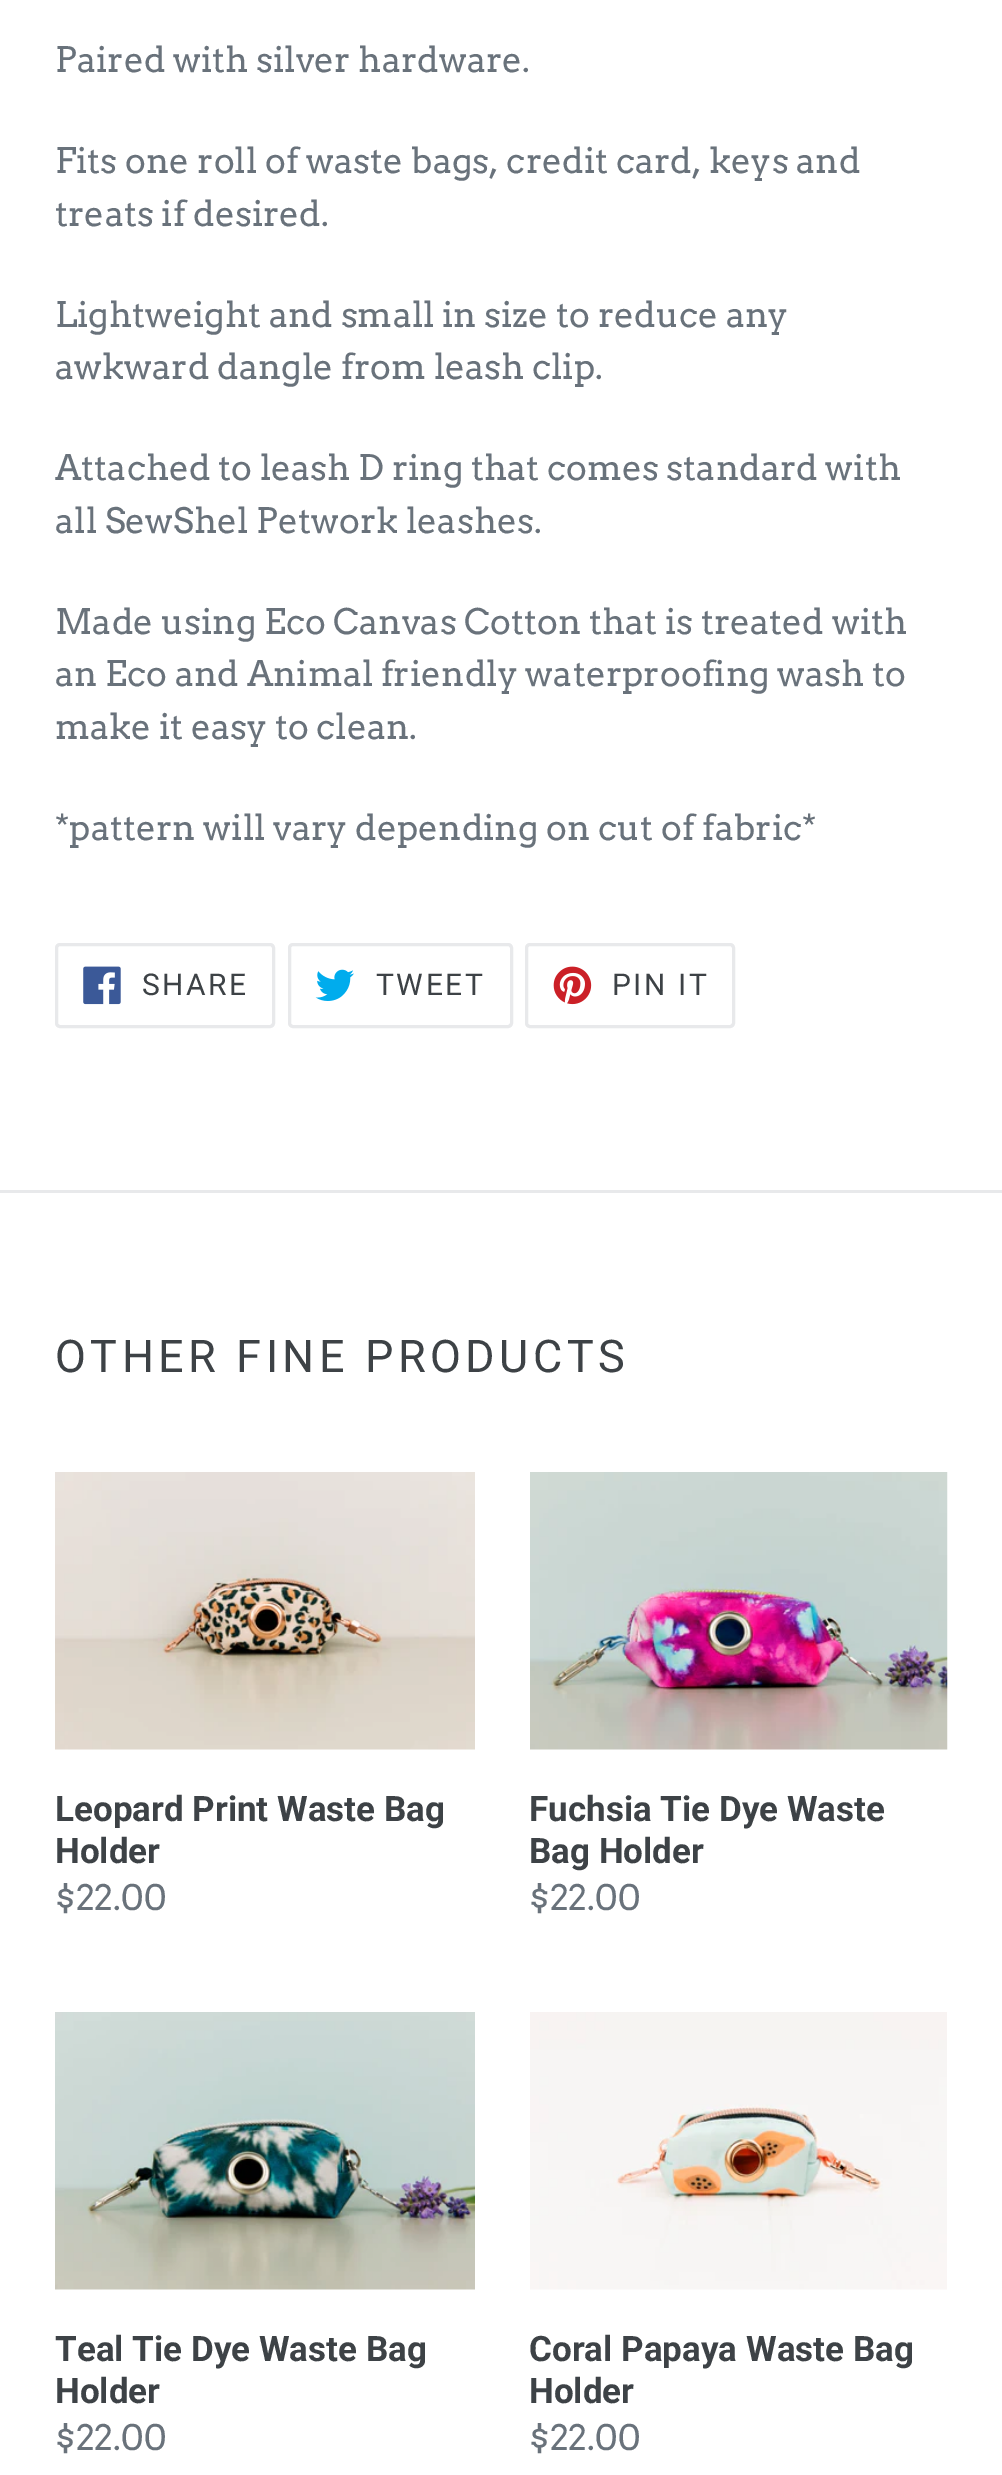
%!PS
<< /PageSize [1002 2475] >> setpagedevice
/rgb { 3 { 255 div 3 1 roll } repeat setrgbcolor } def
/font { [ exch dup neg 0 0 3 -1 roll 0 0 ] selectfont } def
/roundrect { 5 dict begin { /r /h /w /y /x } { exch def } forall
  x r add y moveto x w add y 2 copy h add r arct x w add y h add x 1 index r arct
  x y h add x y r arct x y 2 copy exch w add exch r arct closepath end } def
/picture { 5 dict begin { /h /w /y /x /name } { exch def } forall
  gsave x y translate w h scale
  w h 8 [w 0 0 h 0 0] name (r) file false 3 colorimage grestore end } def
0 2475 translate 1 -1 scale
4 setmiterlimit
255 255 255 rgb
0 0 1002 2475 rectfill
232 233 235 rgb
3 setlinewidth
56.5 944.5 217 82 3.5 roundrect stroke
(img/1.rgb) 83 966 38 39 picture
289.5 944.5 222 82 3.5 roundrect stroke
(img/2.rgb) 315 969 39 32 picture
526.5 944.5 207 82 3.5 roundrect stroke
(img/3.rgb) 553 966 39 39 picture
0 1190 1002 3 rectfill
(img/4.rgb) 55 1472 420 278 picture
(img/5.rgb) 530 1472 418 278 picture
(img/6.rgb) 55 2012 420 278 picture
(img/7.rgb) 530 2012 417 278 picture
/Arvo-Regular 35 font
105 114 123 rgb
[
  [(Paired with silver hardware.) 55 72]
  [(Fits one roll of waste bags, credit card, keys and) 55 173]
  [(treats if desired.) 55 226]
  [(Lightweight and small in size to reduce any) 55 327]
  [(awkward dangle from leash clip.) 55 379]
  [(Attached to leash D ring that comes standard with) 55 480]
  [(all SewShel Petwork) 55 533]
  [(leashes.) 406 533]
  [(Made using Eco Canvas Cotton that is treated with) 55 634]
  [(an Eco and Animal friendly waterproofing wash to) 55 686]
  [(make it easy to clean.) 55 739]
  [(*pattern will vary depending on cut of fabric*) 55 840]
] { aload pop moveto show } forall
/Roboto-Regular 30 font
61 66 70 rgb
142 995 moveto 2.5 0 (SHARE) ashow
376 995 moveto 2.5 0 (TWEET) ashow
612 995 moveto 2.5 0 (PIN IT) ashow
/Roboto-Regular 45 font
55 1372 moveto 4.5 0 (OTHER FINE PRODUCTS) ashow
/Roboto-Bold 35 font
55 1821 moveto (Leopard Print Waste Bag) show
55 1863 moveto (Holder) show
/Arvo-Regular 35 font
105 114 123 rgb
55 1910 moveto ($22.00) show
/Roboto-Bold 35 font
61 66 70 rgb
529 1821 moveto (Fuchsia Tie Dye Waste) show
529 1863 moveto (Bag Holder) show
/Arvo-Regular 35 font
105 114 123 rgb
529 1910 moveto ($22.00) show
/Roboto-Bold 35 font
61 66 70 rgb
55 2361 moveto (Teal Tie Dye Waste Bag) show
55 2403 moveto (Holder) show
/Arvo-Regular 35 font
105 114 123 rgb
55 2450 moveto ($22.00) show
/Roboto-Bold 35 font
61 66 70 rgb
529 2361 moveto (Coral Papaya Waste Bag) show
529 2403 moveto (Holder) show
/Arvo-Regular 35 font
105 114 123 rgb
529 2450 moveto ($22.00) show
showpage
